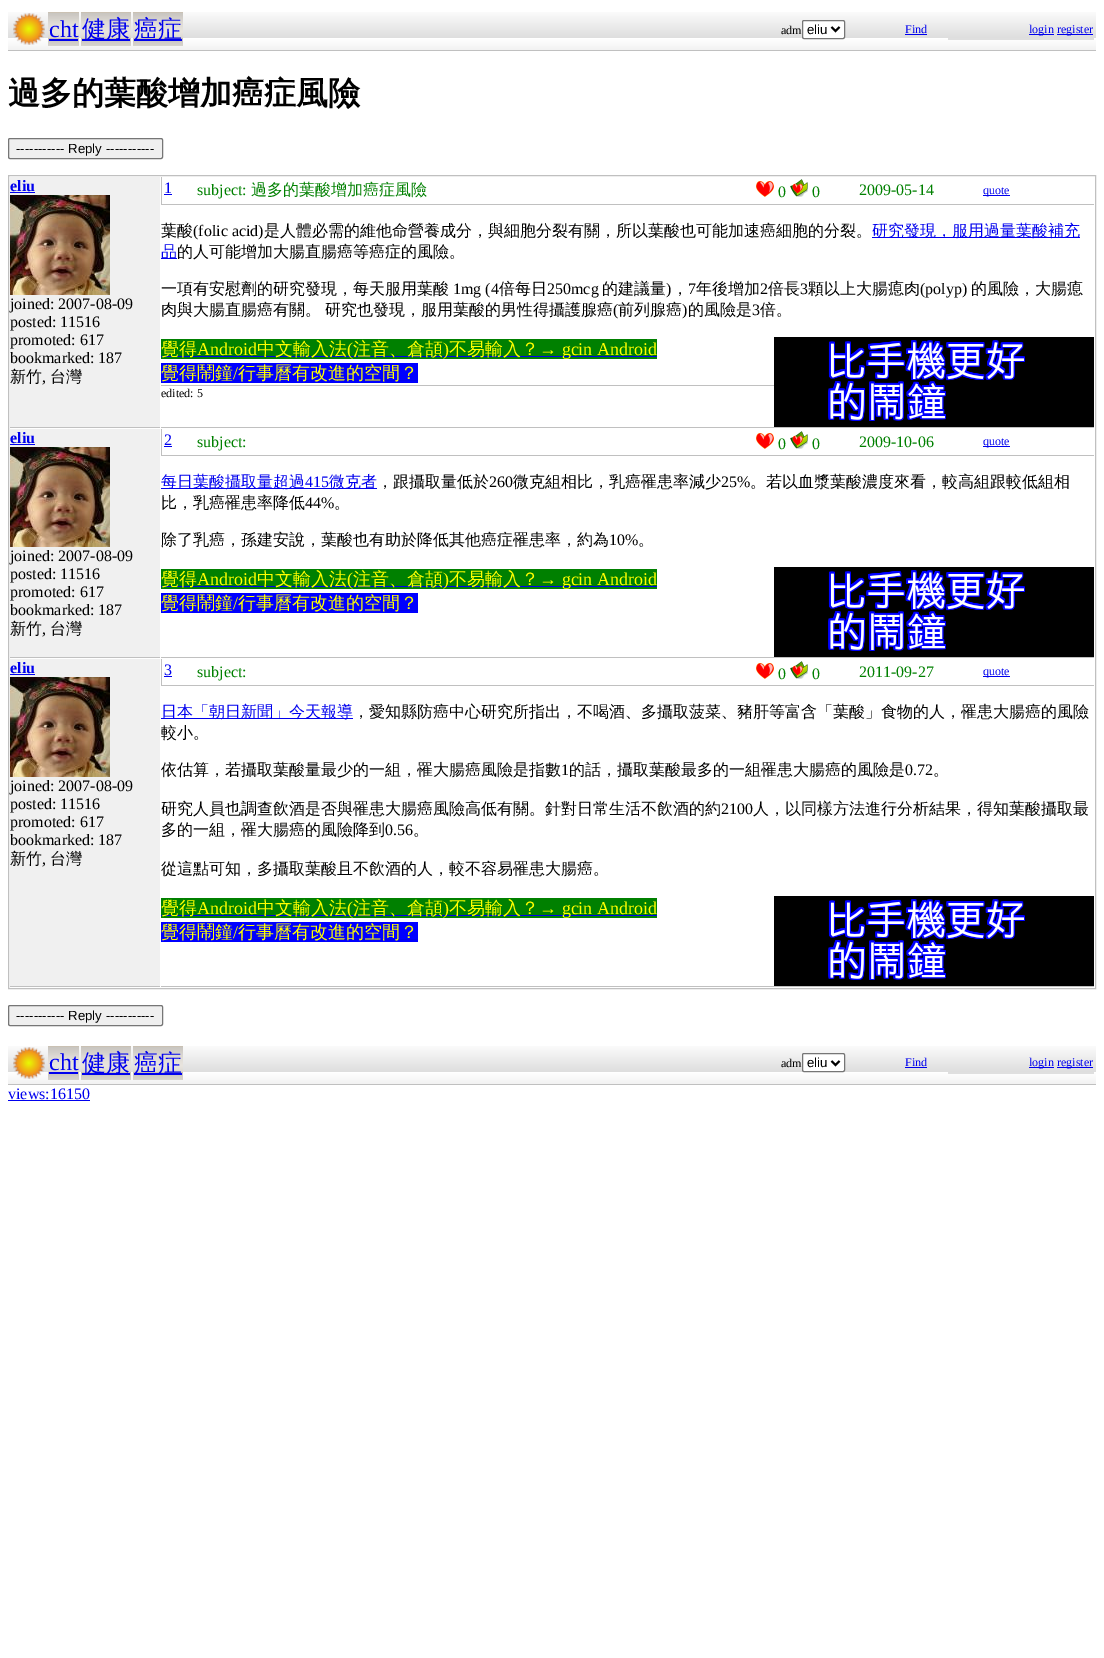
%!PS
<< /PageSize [1104 1658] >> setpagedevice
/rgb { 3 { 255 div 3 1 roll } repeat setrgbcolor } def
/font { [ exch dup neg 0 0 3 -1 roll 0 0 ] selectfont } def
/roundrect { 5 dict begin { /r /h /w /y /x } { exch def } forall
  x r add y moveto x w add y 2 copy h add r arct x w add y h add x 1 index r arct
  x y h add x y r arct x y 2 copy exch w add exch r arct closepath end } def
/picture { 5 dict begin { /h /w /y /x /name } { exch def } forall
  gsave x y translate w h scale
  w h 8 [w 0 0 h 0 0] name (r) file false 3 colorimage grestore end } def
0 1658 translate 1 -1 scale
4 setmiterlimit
255 255 255 rgb
0 0 1104 1658 rectfill
(img/1.rgb) 8 12 1088 38 picture
192 192 192 rgb
8 50 1088 1 rectfill
(img/2.rgb) 13 13 32 32 picture
(img/3.rgb) 48 12 31 34 picture
0 0 238 rgb
49 39 29 2 rectfill
(img/4.rgb) 81 12 50 34 picture
82 39 48 2 rectfill
(img/4.rgb) 133 12 50 34 picture
134 39 48 2 rectfill
255 255 255 rgb
802.5 20.5 42 18 1.5 roundrect gsave fill grestore
118 118 118 rgb
stroke
0 0 0 rgb
2 setlinewidth
831.5 27 moveto 835.5 31 lineto 839.5 27 lineto stroke
[
  [905 34 22 1 0 0 238]
  [948 38 146 2 223 223 223]
  [1029 34 25 1 0 0 238]
  [1057 34 36 1 0 0 238]
] { aload pop rgb rectfill } forall
239 239 239 rgb
8.5 138.5 154 20 1.5 roundrect gsave fill grestore
118 118 118 rgb
1 setlinewidth
stroke
192 192 192 rgb
8.5 175.5 1087 813 rectstroke
[
  [10 177 150 250 240 240 240]
  [10 427 150 1 192 192 192]
  [10 192 25 1 0 0 238]
] { aload pop rgb rectfill } forall
(img/5.rgb) 10 195 100 100 picture
[
  [161 427 933 1 192 192 192]
  [161 204 933 1 192 192 192]
  [161 177 1 28 192 192 192]
  [164 194 8 1 0 0 238]
] { aload pop rgb rectfill } forall
(img/6.rgb) 756 181 18 16 picture
(img/7.rgb) 790 179 18 18 picture
[
  [983 195 27 1 0 0 238]
  [872 237 208 1 0 0 238]
  [161 258 16 1 0 0 238]
  [161 339 496 20 0 128 0]
  [161 356 496 1 0 0 238]
] { aload pop rgb rectfill } forall
(img/8.rgb) 774 337 320 90 picture
[
  [161 363 257 20 0 0 255]
  [161 380 257 1 0 0 238]
  [161 385 613 1 192 192 192]
  [10 429 150 228 240 240 240]
  [10 657 150 1 192 192 192]
  [10 444 25 1 0 0 238]
] { aload pop rgb rectfill } forall
(img/5.rgb) 10 447 100 100 picture
[
  [161 657 933 1 192 192 192]
  [161 455 933 1 192 192 192]
  [161 429 1 27 192 192 192]
  [164 446 8 1 0 0 238]
] { aload pop rgb rectfill } forall
(img/6.rgb) 756 433 18 16 picture
(img/7.rgb) 790 431 18 18 picture
[
  [983 446 27 1 0 0 238]
  [161 488 216 1 0 0 238]
  [161 569 496 20 0 128 0]
  [161 586 496 1 0 0 238]
] { aload pop rgb rectfill } forall
(img/8.rgb) 774 567 320 90 picture
[
  [161 593 257 20 0 0 255]
  [161 610 257 1 0 0 238]
  [10 659 150 327 240 240 240]
  [10 986 150 1 192 192 192]
  [10 674 25 1 0 0 238]
] { aload pop rgb rectfill } forall
(img/5.rgb) 10 677 100 100 picture
[
  [161 986 933 1 192 192 192]
  [161 685 933 1 192 192 192]
  [161 659 1 27 192 192 192]
  [164 676 8 1 0 0 238]
] { aload pop rgb rectfill } forall
(img/6.rgb) 756 663 18 16 picture
(img/7.rgb) 790 661 18 18 picture
[
  [983 676 27 1 0 0 238]
  [161 718 192 1 0 0 238]
  [161 898 496 20 0 128 0]
  [161 915 496 1 0 0 238]
] { aload pop rgb rectfill } forall
(img/8.rgb) 774 896 320 90 picture
0 0 255 rgb
161 922 257 20 rectfill
0 0 238 rgb
161 939 257 1 rectfill
239 239 239 rgb
8.5 1005.5 154 20 1.5 roundrect gsave fill grestore
118 118 118 rgb
stroke
(img/1.rgb) 8 1046 1088 38 picture
192 192 192 rgb
8 1084 1088 1 rectfill
(img/2.rgb) 13 1047 32 32 picture
(img/3.rgb) 48 1046 31 34 picture
0 0 238 rgb
49 1072 29 2 rectfill
(img/4.rgb) 81 1046 50 34 picture
82 1073 48 2 rectfill
(img/4.rgb) 133 1046 50 34 picture
134 1073 48 2 rectfill
255 255 255 rgb
802.5 1053.5 42 18 1.5 roundrect gsave fill grestore
118 118 118 rgb
stroke
0 0 0 rgb
2 setlinewidth
831.5 1061 moveto 835.5 1065 lineto 839.5 1061 lineto stroke
[
  [905 1067 22 1 0 0 238]
  [948 1072 146 2 223 223 223]
  [1029 1067 25 1 0 0 238]
  [1057 1067 36 1 0 0 238]
  [8 1100 82 1 0 0 238]
] { aload pop rgb rectfill } forall
/LiberationSerif-Regular 24 font
49 37 moveto (cht) show
/WenQuanYiZenHei-Medium 24 font
82 37 moveto (健康) show
134 37 moveto (癌症) show
/LiberationSerif-Regular 12 font
0 0 0 rgb
781 34 moveto (adm) show
/LiberationSans-Regular 13.25 font
807 34 moveto (eliu) show
/LiberationSerif-Regular 12 font
0 0 238 rgb
[
  [(Find) 905 33]
  [(login) 1029 33]
  [(register) 1057 33]
] { aload pop moveto show } forall
/WenQuanYiZenHei-Bold 32 font
0 0 0 rgb
8 104 moveto (過多的葉酸增加癌症風險) show
/LiberationSans-Regular 13.25 font
16 153 moveto (----------- Reply -----------) show
/LiberationSerif-Bold 16 font
0 0 238 rgb
10 191 moveto (eliu) show
/LiberationSerif-Regular 16 font
0 0 0 rgb
[
  [(joined: 2007-08-09) 10 309]
  [(posted: 11516) 10 327]
  [(promoted: 617) 10 345]
  [(bookmarked: 187) 10 363]
] { aload pop moveto show } forall
/WenQuanYiZenHei-Medium 16 font
10 382 moveto (新竹) show
/LiberationSerif-Regular 16 font
42 382 moveto (,) show
/WenQuanYiZenHei-Medium 16 font
50 382 moveto (台灣) show
/LiberationSerif-Regular 16 font
0 0 238 rgb
164 193 moveto (1) show
0 128 0 rgb
197 195 moveto (subject:) show
/WenQuanYiZenHei-Medium 16 font
251 195 moveto (過多的葉酸增加癌症風險) show
/LiberationSerif-Regular 16 font
[
  [(0) 778 197]
  [(0) 812 197]
  [(2009-05-14) 859 195]
] { aload pop moveto show } forall
/LiberationSerif-Regular 12 font
0 0 238 rgb
983 194 moveto (quote) show
/WenQuanYiZenHei-Medium 16 font
0 0 0 rgb
161 236 moveto (葉酸) show
/LiberationSerif-Regular 16 font
193 236 moveto (\(folic acid\)) show
/WenQuanYiZenHei-Medium 16 font
264 236 moveto (是人體必需的維他命營養成分，與細胞分裂有關，所以葉酸也可能加速癌細胞的分裂。) show
0 0 238 rgb
872 236 moveto (研究發現，服用過量葉酸補充) show
161 257 moveto (品) show
0 0 0 rgb
177 257 moveto (的人可能增加大腸直腸癌等癌症的風險。) show
161 294 moveto (一項有安慰劑的研究發現，每天服用葉酸) show
/LiberationSerif-Regular 16 font
453 294 moveto (1mg \(4) show
/WenQuanYiZenHei-Medium 16 font
499 294 moveto (倍每日) show
/LiberationSerif-Regular 16 font
547 294 moveto (250mcg) show
/WenQuanYiZenHei-Medium 16 font
602 294 moveto (的建議量) show
/LiberationSerif-Regular 16 font
666 294 moveto (\)) show
/WenQuanYiZenHei-Medium 16 font
672 294 moveto (，) show
/LiberationSerif-Regular 16 font
688 294 moveto (7) show
/WenQuanYiZenHei-Medium 16 font
696 294 moveto (年後增加) show
/LiberationSerif-Regular 16 font
760 294 moveto (2) show
/WenQuanYiZenHei-Medium 16 font
768 294 moveto (倍長) show
/LiberationSerif-Regular 16 font
800 294 moveto (3) show
/WenQuanYiZenHei-Medium 16 font
808 294 moveto (顆以上大腸瘜肉) show
/LiberationSerif-Regular 16 font
920 294 moveto (\(polyp\)) show
/WenQuanYiZenHei-Medium 16 font
971 294 moveto (的風險，大腸瘜) show
161 315 moveto -1 0 32 (肉與大腸直腸癌有關。 研究也發現，服用葉酸的男性得攝護腺癌) widthshow
/LiberationSerif-Regular 16 font
613 315 moveto (\() show
/WenQuanYiZenHei-Medium 16 font
618 315 moveto (前列腺癌) show
/LiberationSerif-Regular 16 font
682 315 moveto (\)) show
/WenQuanYiZenHei-Medium 16 font
688 315 moveto (的風險是) show
/LiberationSerif-Regular 16 font
752 315 moveto (3) show
/WenQuanYiZenHei-Medium 16 font
760 315 moveto (倍。) show
/WenQuanYiZenHei-Medium 18 font
255 255 0 rgb
161 355 moveto (覺得) show
/LiberationSerif-Regular 18 font
197 355 moveto (Android) show
/WenQuanYiZenHei-Medium 18 font
257 355 moveto (中文輸入法) show
/LiberationSerif-Regular 18 font
347 355 moveto (\() show
/WenQuanYiZenHei-Medium 18 font
353 355 moveto (注音、倉頡) show
/LiberationSerif-Regular 18 font
443 355 moveto (\)) show
/WenQuanYiZenHei-Medium 18 font
449 355 moveto (不易輸入？) show
/LiberationSerif-Regular 18 font
539 355 moveto (→ gcin Android) show
/WenQuanYiZenHei-Medium 18 font
161 379 moveto (覺得鬧鐘) show
/LiberationSerif-Regular 18 font
233 379 moveto (/) show
/WenQuanYiZenHei-Medium 18 font
238 379 moveto (行事曆有改進的空間？) show
/LiberationSerif-Regular 12 font
0 0 0 rgb
161 397 moveto (edited: 5) show
/LiberationSerif-Bold 16 font
0 0 238 rgb
10 443 moveto (eliu) show
/LiberationSerif-Regular 16 font
0 0 0 rgb
[
  [(joined: 2007-08-09) 10 561]
  [(posted: 11516) 10 579]
  [(promoted: 617) 10 597]
  [(bookmarked: 187) 10 615]
] { aload pop moveto show } forall
/WenQuanYiZenHei-Medium 16 font
10 634 moveto (新竹) show
/LiberationSerif-Regular 16 font
42 634 moveto (,) show
/WenQuanYiZenHei-Medium 16 font
50 634 moveto (台灣) show
/LiberationSerif-Regular 16 font
0 0 238 rgb
164 445 moveto (2) show
0 128 0 rgb
[
  [(subject:) 197 447]
  [(0) 778 449]
  [(0) 812 449]
  [(2009-10-06) 859 447]
] { aload pop moveto show } forall
/LiberationSerif-Regular 12 font
0 0 238 rgb
983 445 moveto (quote) show
/WenQuanYiZenHei-Medium 16 font
161 487 moveto (每日葉酸攝取量超過) show
/LiberationSerif-Regular 16 font
305 487 moveto (415) show
/WenQuanYiZenHei-Medium 16 font
329 487 moveto (微克者) show
0 0 0 rgb
377 487 moveto (，跟攝取量低於) show
/LiberationSerif-Regular 16 font
489 487 moveto (260) show
/WenQuanYiZenHei-Medium 16 font
513 487 moveto (微克組相比，乳癌罹患率減少) show
/LiberationSerif-Regular 16 font
721 487 moveto (25%) show
/WenQuanYiZenHei-Medium 16 font
750 487 moveto (。若以血漿葉酸濃度來看，較高組跟較低組相) show
161 508 moveto (比，乳癌罹患率降低) show
/LiberationSerif-Regular 16 font
305 508 moveto (44%) show
/WenQuanYiZenHei-Medium 16 font
334 508 moveto (。) show
161 545 moveto (除了乳癌，孫建安說，葉酸也有助於降低其他癌症罹患率，約為) show
/LiberationSerif-Regular 16 font
609 545 moveto (10%) show
/WenQuanYiZenHei-Medium 16 font
638 545 moveto (。) show
/WenQuanYiZenHei-Medium 18 font
255 255 0 rgb
161 585 moveto (覺得) show
/LiberationSerif-Regular 18 font
197 585 moveto (Android) show
/WenQuanYiZenHei-Medium 18 font
257 585 moveto (中文輸入法) show
/LiberationSerif-Regular 18 font
347 585 moveto (\() show
/WenQuanYiZenHei-Medium 18 font
353 585 moveto (注音、倉頡) show
/LiberationSerif-Regular 18 font
443 585 moveto (\)) show
/WenQuanYiZenHei-Medium 18 font
449 585 moveto (不易輸入？) show
/LiberationSerif-Regular 18 font
539 585 moveto (→ gcin Android) show
/WenQuanYiZenHei-Medium 18 font
161 609 moveto (覺得鬧鐘) show
/LiberationSerif-Regular 18 font
233 609 moveto (/) show
/WenQuanYiZenHei-Medium 18 font
238 609 moveto (行事曆有改進的空間？) show
/LiberationSerif-Bold 16 font
0 0 238 rgb
10 673 moveto (eliu) show
/LiberationSerif-Regular 16 font
0 0 0 rgb
[
  [(joined: 2007-08-09) 10 791]
  [(posted: 11516) 10 809]
  [(promoted: 617) 10 827]
  [(bookmarked: 187) 10 845]
] { aload pop moveto show } forall
/WenQuanYiZenHei-Medium 16 font
10 864 moveto (新竹) show
/LiberationSerif-Regular 16 font
42 864 moveto (,) show
/WenQuanYiZenHei-Medium 16 font
50 864 moveto (台灣) show
/LiberationSerif-Regular 16 font
0 0 238 rgb
164 675 moveto (3) show
0 128 0 rgb
[
  [(subject:) 197 677]
  [(0) 778 679]
  [(0) 812 679]
  [(2011-09-27) 859 677]
] { aload pop moveto show } forall
/LiberationSerif-Regular 12 font
0 0 238 rgb
983 675 moveto (quote) show
/WenQuanYiZenHei-Medium 16 font
161 717 moveto (日本「朝日新聞」今天報導) show
0 0 0 rgb
[
  [(，愛知縣防癌中心研究所指出，不喝酒、多攝取菠菜、豬肝等富含「葉酸」食物的人，罹患大腸癌的風險) 353 717]
  [(較小。) 161 738]
  [(依估算，若攝取葉酸量最少的一組，罹大腸癌風險是指數) 161 775]
] { aload pop moveto show } forall
/LiberationSerif-Regular 16 font
561 775 moveto (1) show
/WenQuanYiZenHei-Medium 16 font
569 775 moveto (的話，攝取葉酸最多的一組罹患大腸癌的風險是) show
/LiberationSerif-Regular 16 font
905 775 moveto (0.72) show
/WenQuanYiZenHei-Medium 16 font
933 775 moveto (。) show
161 814 moveto (研究人員也調查飲酒是否與罹患大腸癌風險高低有關。針對日常生活不飲酒的約) show
/LiberationSerif-Regular 16 font
721 814 moveto (2100) show
/WenQuanYiZenHei-Medium 16 font
753 814 moveto (人，以同樣方法進行分析結果，得知葉酸攝取最) show
161 835 moveto (多的一組，罹大腸癌的風險降到) show
/LiberationSerif-Regular 16 font
385 835 moveto (0.56) show
/WenQuanYiZenHei-Medium 16 font
413 835 moveto (。) show
161 874 moveto (從這點可知，多攝取葉酸且不飲酒的人，較不容易罹患大腸癌。) show
/WenQuanYiZenHei-Medium 18 font
255 255 0 rgb
161 914 moveto (覺得) show
/LiberationSerif-Regular 18 font
197 914 moveto (Android) show
/WenQuanYiZenHei-Medium 18 font
257 914 moveto (中文輸入法) show
/LiberationSerif-Regular 18 font
347 914 moveto (\() show
/WenQuanYiZenHei-Medium 18 font
353 914 moveto (注音、倉頡) show
/LiberationSerif-Regular 18 font
443 914 moveto (\)) show
/WenQuanYiZenHei-Medium 18 font
449 914 moveto (不易輸入？) show
/LiberationSerif-Regular 18 font
539 914 moveto (→ gcin Android) show
/WenQuanYiZenHei-Medium 18 font
161 938 moveto (覺得鬧鐘) show
/LiberationSerif-Regular 18 font
233 938 moveto (/) show
/WenQuanYiZenHei-Medium 18 font
238 938 moveto (行事曆有改進的空間？) show
/LiberationSans-Regular 13.25 font
0 0 0 rgb
16 1020 moveto (----------- Reply -----------) show
/LiberationSerif-Regular 24 font
0 0 238 rgb
49 1070 moveto (cht) show
/WenQuanYiZenHei-Medium 24 font
82 1071 moveto (健康) show
134 1071 moveto (癌症) show
/LiberationSerif-Regular 12 font
0 0 0 rgb
781 1067 moveto (adm) show
/LiberationSans-Regular 13.25 font
807 1067 moveto (eliu) show
/LiberationSerif-Regular 12 font
0 0 238 rgb
[
  [(Find) 905 1066]
  [(login) 1029 1066]
  [(register) 1057 1066]
] { aload pop moveto show } forall
/LiberationSerif-Regular 16 font
8 1099 moveto (views:16150) show
showpage
